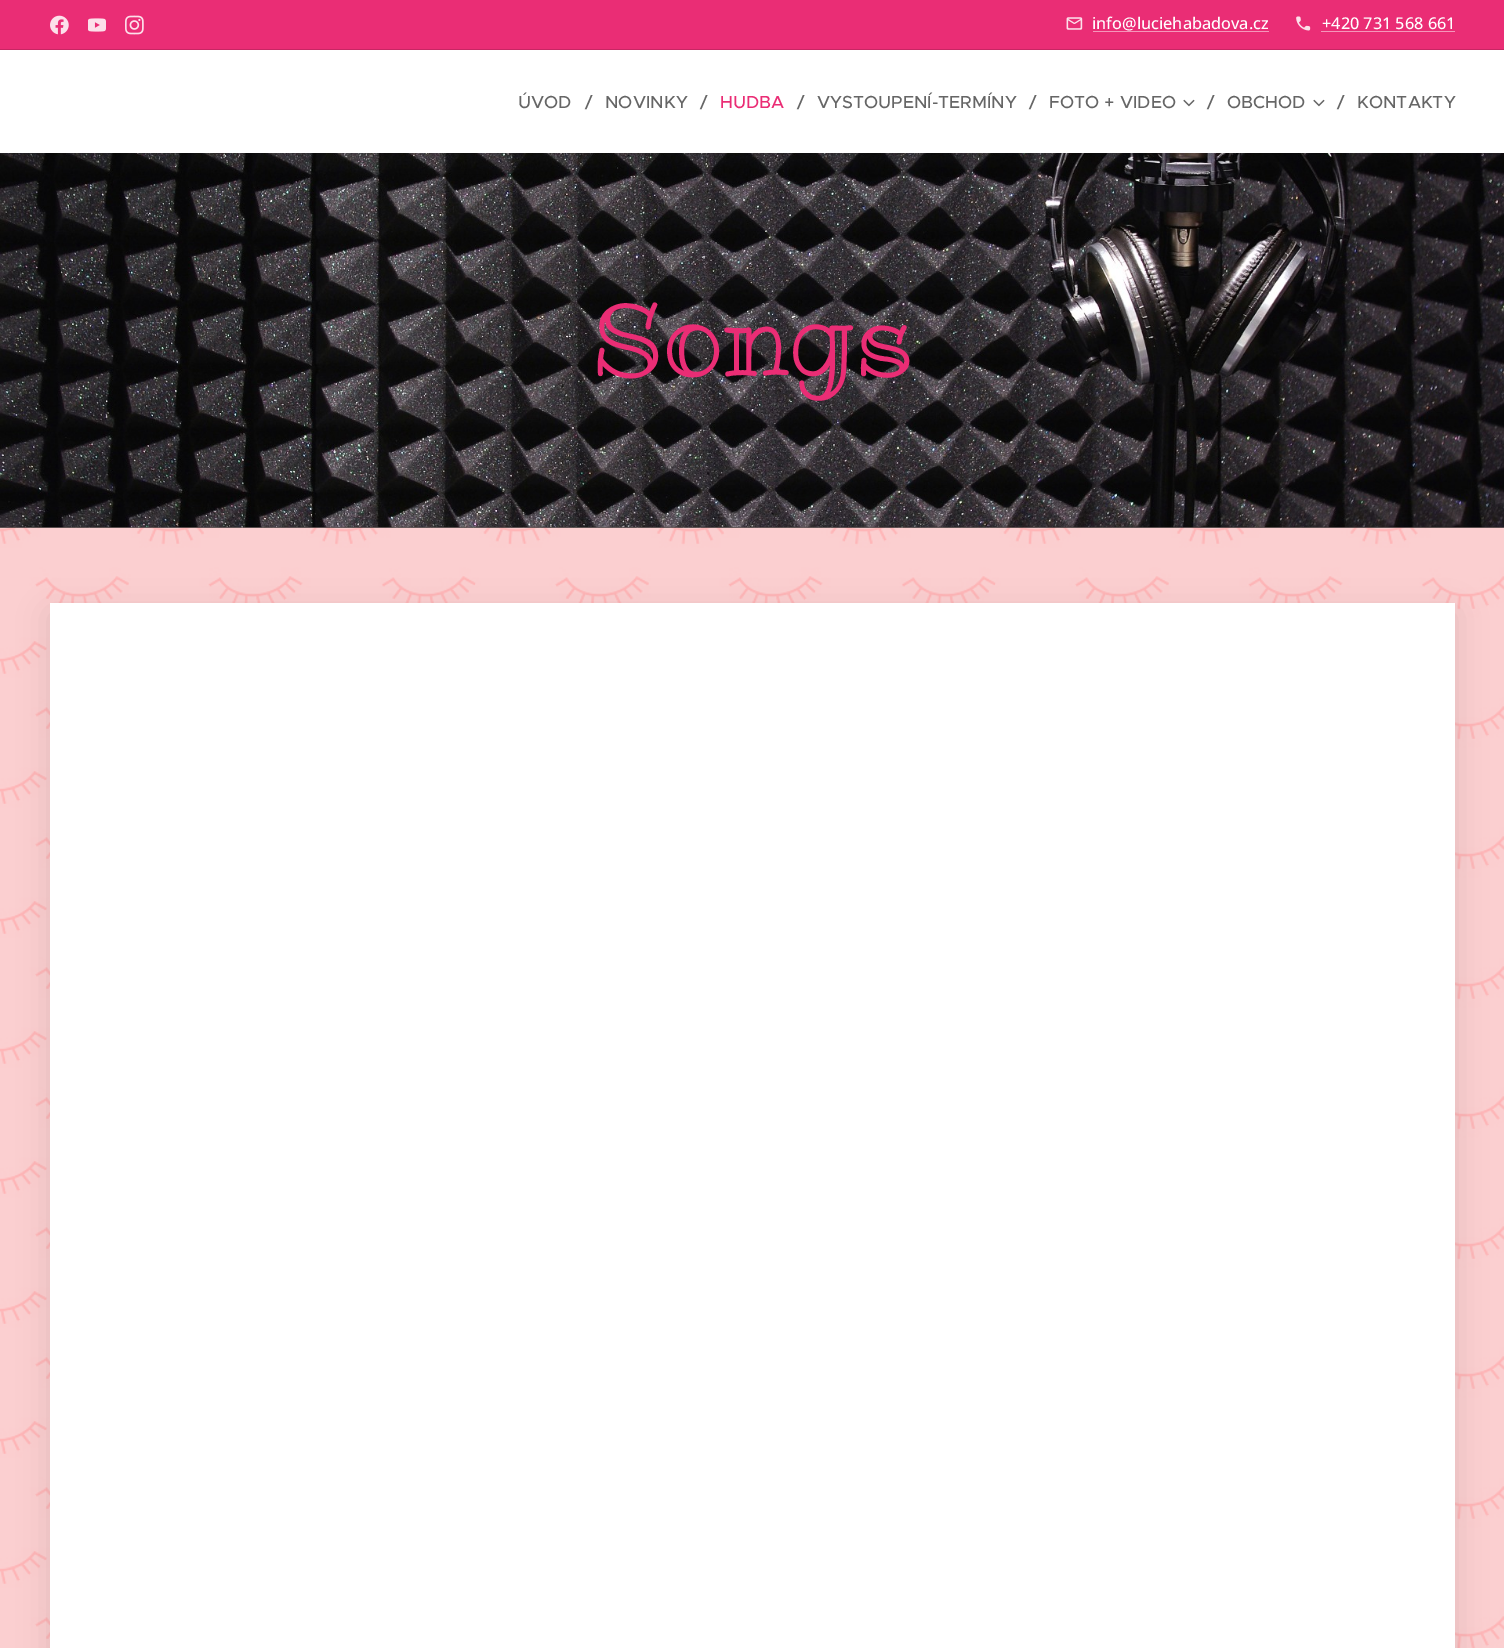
%!PS
<< /PageSize [1504 1648] /PageUsesTransparency true >> setpagedevice
/rgb { 3 { 255 div 3 1 roll } repeat setrgbcolor } def
/font { [ exch dup neg 0 0 3 -1 roll 0 0 ] selectfont } def
/alpha { dup .setfillconstantalpha .setstrokeconstantalpha } def
/roundrect { 5 dict begin { /r /h /w /y /x } { exch def } forall
  x r add y moveto x w add y 2 copy h add r arct x w add y h add x 1 index r arct
  x y h add x y r arct x y 2 copy exch w add exch r arct closepath end } def
/shadow { 12 dict begin { /a /b /q /h /w /y /x } { exch def } forall gsave /was 0 def
  9 -2 -9 { dup b mul 4 div /e exch def 1 sub .425 mul 2.718 exch exp 1 add a .99 .min exch div /now exch def
    1 1 now sub 1 was sub div sub alpha /was now def
    w h .min e 2 mul add 0 gt { x e sub y e sub w e 2 mul add h e 2 mul add
      q e add b .6 mul add w h .min 2 div e add .min 0 .max roundrect fill } if } for grestore end } def
/picture { 5 dict begin { /h /w /y /x /name } { exch def } forall
  gsave x y translate w h scale
  w h 8 [w 0 0 h 0 0] name (r) file false 3 colorimage grestore end } def
0 .pushpdf14devicefilter
0 1648 translate 1 -1 scale
4 setmiterlimit
39 39 39 rgb
0 0 1504 1648 rectfill
234 45 117 rgb
0 0 1504 49 rectfill
(img/1.rgb) 50 15 19 20 picture
(img/2.rgb) 88 18 18 14 picture
(img/3.rgb) 125 15 19 20 picture
(img/4.rgb) 1066 17 17 13 picture
245 150 186 rgb
1093 31 176 1 rectfill
(img/5.rgb) 1296 16 15 15 picture
[
  [1321 31 134 1 245 150 186]
  [0 49 1504 1 199 38 99]
  [0 50 1504 103 255 255 255]
] { aload pop rgb rectfill } forall
(img/6.rgb) 1183 99 12 8 picture
(img/6.rgb) 1313 99 12 8 picture
(img/7.rgb) 0 153 1504 375 picture
(img/8.rgb) 0 527 1504 1121 picture
0 0 0 rgb
50 613 1405 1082 0 15.5 0.1 shadow
255 255 255 rgb
50 603 1405 1045 rectfill
/OpenSans-Medium 16.25 font
1092 29 moveto (info@luciehabadova.cz) show
1322 29 moveto (+420 731 568 661) show
/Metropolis-Medium 17.5 font
102 102 102 rgb
[
  [(ÚVOD) 518 108]
  [(/) 585 108]
  [(NOVINKY) 605 108]
  [(/) 700 108]
] { aload pop moveto show } forall
234 45 117 rgb
720 108 moveto (HUDBA) show
102 102 102 rgb
[
  [(/) 797 108]
  [(VYSTOUPENÍ-TERMÍNY) 817 108]
  [(/) 1029 108]
  [(FOTO + VIDEO) 1049 108]
  [(/) 1207 108]
  [(OBCHOD) 1227 108]
  [(/) 1337 108]
  [(KONTAKTY) 1357 108]
] { aload pop moveto show } forall
/RibeyeMarrow-Regular 100 font
234 45 117 rgb
592 375 moveto (Songs) show
.poppdf14devicefilter showpage
